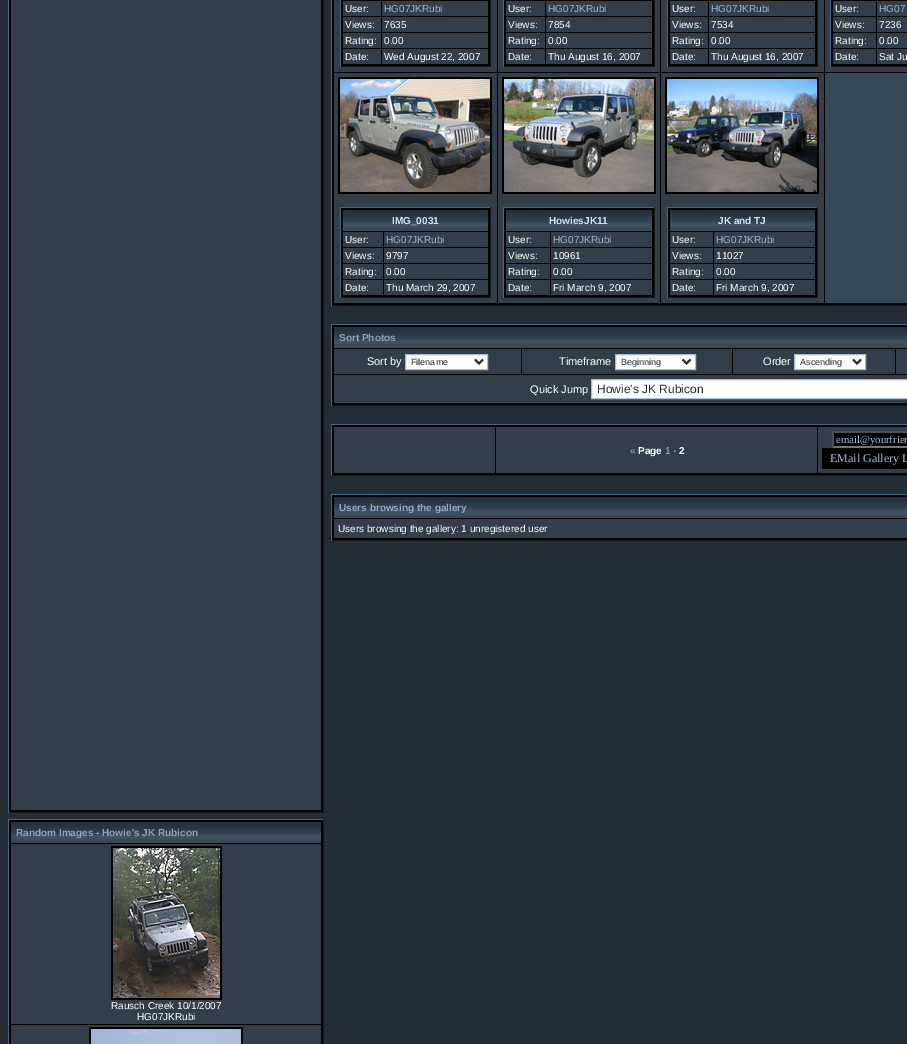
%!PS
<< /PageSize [907 1044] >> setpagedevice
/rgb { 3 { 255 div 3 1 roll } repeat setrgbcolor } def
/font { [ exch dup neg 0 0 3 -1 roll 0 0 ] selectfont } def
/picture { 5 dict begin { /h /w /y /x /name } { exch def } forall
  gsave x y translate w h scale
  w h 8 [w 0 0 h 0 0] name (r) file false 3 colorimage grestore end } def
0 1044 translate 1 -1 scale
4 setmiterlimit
35 45 53 rgb
0 0 907 1044 rectfill
[
  [332 0 575 305 0 0 0]
  [331 305 576 1 19 22 25]
  [331 0 1 306 71 104 132]
  [334 0 163 72 50 63 74]
  [341 0 149 66 0 0 0]
  [490 0 1 67 19 22 25]
  [340 66 151 1 19 22 25]
  [340 0 1 67 71 104 132]
  [343 1 38 15 50 63 74]
  [382 1 106 15 50 63 74]
  [343 17 38 15 50 63 74]
  [382 17 106 15 50 63 74]
  [343 33 38 15 50 63 74]
  [382 33 106 15 50 63 74]
  [343 49 38 15 50 63 74]
  [382 49 106 15 50 63 74]
  [498 0 162 72 50 63 74]
  [504 0 150 66 0 0 0]
  [654 0 1 67 19 22 25]
  [503 66 152 1 19 22 25]
  [503 0 1 67 71 104 132]
  [506 1 39 15 50 63 74]
  [546 1 106 15 50 63 74]
  [506 17 39 15 50 63 74]
  [546 17 106 15 50 63 74]
  [506 33 39 15 50 63 74]
  [546 33 106 15 50 63 74]
  [506 49 39 15 50 63 74]
  [546 49 106 15 50 63 74]
  [661 0 163 72 50 63 74]
  [668 0 149 66 0 0 0]
  [817 0 1 67 19 22 25]
  [667 66 151 1 19 22 25]
  [667 0 1 67 71 104 132]
  [670 1 38 15 50 63 74]
  [709 1 106 15 50 63 74]
  [670 17 38 15 50 63 74]
  [709 17 106 15 50 63 74]
  [670 33 38 15 50 63 74]
  [709 33 106 15 50 63 74]
  [670 49 38 15 50 63 74]
  [709 49 106 15 50 63 74]
  [825 0 82 72 50 63 74]
  [831 0 76 66 0 0 0]
  [830 66 77 1 19 22 25]
  [830 0 1 67 71 104 132]
  [833 1 43 15 50 63 74]
  [877 1 30 15 50 63 74]
  [833 17 43 15 50 63 74]
  [877 17 30 15 50 63 74]
  [833 33 43 15 50 63 74]
  [877 33 30 15 50 63 74]
  [833 49 43 15 50 63 74]
  [877 49 30 15 50 63 74]
  [334 73 163 230 50 63 74]
  [338 77 154 117 0 0 0]
] { aload pop rgb rectfill } forall
(img/1.rgb) 340 79 150 113 picture
[
  [341 208 149 89 0 0 0]
  [340 207 151 1 71 104 132]
  [490 207 1 91 19 22 25]
  [340 297 151 1 19 22 25]
  [340 207 1 91 71 104 132]
] { aload pop rgb rectfill } forall
(img/2.rgb) 343 210 145 21 picture
[
  [343 232 40 15 50 63 74]
  [384 232 104 15 50 63 74]
  [343 248 40 15 50 63 74]
  [384 248 104 15 50 63 74]
  [343 264 40 15 50 63 74]
  [384 264 104 15 50 63 74]
  [343 280 40 15 50 63 74]
  [384 280 104 15 50 63 74]
  [498 73 162 230 50 63 74]
  [502 77 154 117 0 0 0]
] { aload pop rgb rectfill } forall
(img/3.rgb) 504 79 150 113 picture
[
  [504 208 150 89 0 0 0]
  [503 207 152 1 71 104 132]
  [654 207 1 91 19 22 25]
  [503 297 152 1 19 22 25]
  [503 207 1 91 71 104 132]
] { aload pop rgb rectfill } forall
(img/4.rgb) 506 210 146 21 picture
[
  [506 232 44 15 50 63 74]
  [551 232 101 15 50 63 74]
  [506 248 44 15 50 63 74]
  [551 248 101 15 50 63 74]
  [506 264 44 15 50 63 74]
  [551 264 101 15 50 63 74]
  [506 280 44 15 50 63 74]
  [551 280 101 15 50 63 74]
  [661 73 163 230 50 63 74]
  [665 77 154 117 0 0 0]
] { aload pop rgb rectfill } forall
(img/5.rgb) 667 79 150 113 picture
[
  [668 208 149 89 0 0 0]
  [667 207 151 1 71 104 132]
  [817 207 1 91 19 22 25]
  [667 297 151 1 19 22 25]
  [667 207 1 91 71 104 132]
] { aload pop rgb rectfill } forall
(img/2.rgb) 670 210 145 21 picture
[
  [670 232 43 15 50 63 74]
  [714 232 101 15 50 63 74]
  [670 248 43 15 50 63 74]
  [714 248 101 15 50 63 74]
  [670 264 43 15 50 63 74]
  [714 264 101 15 50 63 74]
  [670 280 43 15 50 63 74]
  [714 280 101 15 50 63 74]
  [825 73 82 230 54 73 89]
  [332 325 575 80 0 0 0]
  [331 324 576 1 71 104 132]
  [331 405 576 1 19 22 25]
  [331 324 1 82 71 104 132]
] { aload pop rgb rectfill } forall
(img/6.rgb) 334 327 573 21 picture
50 63 74 rgb
334 349 187 25 rectfill
255 255 255 rgb
405.5 354.5 moveto 487.5 354.5 lineto 487.5 369.5 lineto 405.5 369.5 lineto closepath gsave fill grestore
167 186 209 rgb
stroke
35 45 53 rgb
2 setlinewidth
475 359.5 moveto 479 363.5 lineto 483 359.5 lineto stroke
50 63 74 rgb
522 349 210 25 rectfill
255 255 255 rgb
615.5 354.5 moveto 695.5 354.5 lineto 695.5 369.5 lineto 615.5 369.5 lineto closepath gsave fill grestore
167 186 209 rgb
1 setlinewidth
stroke
35 45 53 rgb
2 setlinewidth
682.5 359.5 moveto 686.5 363.5 lineto 690.5 359.5 lineto stroke
50 63 74 rgb
733 349 162 25 rectfill
255 255 255 rgb
794.5 354.5 moveto 865.5 354.5 lineto 865.5 369.5 lineto 794.5 369.5 lineto closepath gsave fill grestore
167 186 209 rgb
1 setlinewidth
stroke
35 45 53 rgb
2 setlinewidth
853 359.5 moveto 857 363.5 lineto 861 359.5 lineto stroke
50 63 74 rgb
896 349 11 25 rectfill
334 375 573 28 rectfill
255 255 255 rgb
591.5 379.5 moveto 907.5 379.5 lineto 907.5 398.5 lineto 591.5 398.5 lineto closepath gsave fill grestore
167 186 209 rgb
1 setlinewidth
stroke
[
  [332 425 575 50 0 0 0]
  [331 424 576 1 71 104 132]
  [331 475 576 1 19 22 25]
  [331 424 1 52 71 104 132]
  [334 427 161 46 50 63 74]
  [496 427 321 46 50 63 74]
  [818 427 89 46 50 63 74]
  [832 431 75 17 0 0 0]
] { aload pop rgb rectfill } forall
79 79 79 rgb
832 431 moveto 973 431 lineto 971 433 lineto 834 433 lineto closepath fill
118 118 118 rgb
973 448 moveto 832 448 lineto 834 446 lineto 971 446 lineto closepath fill
79 79 79 rgb
832 448 moveto 832 431 lineto 834 433 lineto 834 446 lineto closepath fill
[
  [822 448 85 21 0 0 0]
  [332 495 575 45 0 0 0]
  [331 494 576 1 71 104 132]
  [331 540 576 1 19 22 25]
  [331 494 1 47 71 104 132]
] { aload pop rgb rectfill } forall
(img/6.rgb) 334 497 573 21 picture
[
  [334 519 573 19 50 63 74]
  [9 0 314 812 0 0 0]
  [323 0 1 813 19 22 25]
  [8 812 316 1 19 22 25]
  [8 0 1 813 71 104 132]
  [11 0 310 810 50 63 74]
  [9 820 314 224 0 0 0]
  [8 819 316 1 71 104 132]
  [323 819 1 225 19 22 25]
  [8 819 1 225 71 104 132]
] { aload pop rgb rectfill } forall
(img/7.rgb) 11 822 310 21 picture
50 63 74 rgb
11 844 310 180 rectfill
0 0 0 rgb
111 846 111 154 rectfill
(img/8.rgb) 113 848 107 150 picture
50 63 74 rgb
11 1025 310 19 rectfill
0 0 0 rgb
89 1027 154 17 rectfill
(img/9.rgb) 91 1029 150 15 picture
/LiberationSans-Regular 10 font
255 255 255 rgb
345 12 moveto (User:) show
160 182 211 rgb
384 12 moveto (HG07JKRubi) show
255 255 255 rgb
[
  [(Views:) 345 28]
  [(7635) 384 28]
  [(Rating:) 345 44]
  [(0.00) 384 44]
  [(Date:) 345 60]
  [(Wed August 22, 2007) 384 60]
  [(User:) 508 12]
] { aload pop moveto show } forall
160 182 211 rgb
548 12 moveto (HG07JKRubi) show
255 255 255 rgb
[
  [(Views:) 508 28]
  [(7854) 548 28]
  [(Rating:) 508 44]
  [(0.00) 548 44]
  [(Date:) 508 60]
  [(Thu August 16, 2007) 548 60]
  [(User:) 672 12]
] { aload pop moveto show } forall
160 182 211 rgb
711 12 moveto (HG07JKRubi) show
255 255 255 rgb
[
  [(Views:) 672 28]
  [(7534) 711 28]
  [(Rating:) 672 44]
  [(0.00) 711 44]
  [(Date:) 672 60]
  [(Thu August 16, 2007) 711 60]
  [(User:) 835 12]
] { aload pop moveto show } forall
160 182 211 rgb
879 12 moveto (HG07) show
255 255 255 rgb
[
  [(Views:) 835 28]
  [(7236) 879 28]
  [(Rating:) 835 44]
  [(0.00) 879 44]
  [(Date:) 835 60]
  [(Sat Ju) 879 60]
] { aload pop moveto show } forall
/LiberationSans-Bold 10 font
205 229 252 rgb
392 224 moveto (IMG_0031) show
/LiberationSans-Regular 10 font
255 255 255 rgb
345 243 moveto (User:) show
160 182 211 rgb
386 243 moveto (HG07JKRubi) show
255 255 255 rgb
[
  [(Views:) 345 259]
  [(9797) 386 259]
  [(Rating:) 345 275]
  [(0.00) 386 275]
  [(Date:) 345 291]
  [(Thu March 29, 2007) 386 291]
] { aload pop moveto show } forall
/LiberationSans-Bold 10 font
205 229 252 rgb
549 224 moveto (HowiesJK11) show
/LiberationSans-Regular 10 font
255 255 255 rgb
508 243 moveto (User:) show
160 182 211 rgb
553 243 moveto (HG07JKRubi) show
255 255 255 rgb
[
  [(Views:) 508 259]
  [(10961) 553 259]
  [(Rating:) 508 275]
  [(0.00) 553 275]
  [(Date:) 508 291]
  [(Fri March 9, 2007) 553 291]
] { aload pop moveto show } forall
/LiberationSans-Bold 10 font
205 229 252 rgb
718 224 moveto (JK and TJ) show
/LiberationSans-Regular 10 font
255 255 255 rgb
672 243 moveto (User:) show
160 182 211 rgb
716 243 moveto (HG07JKRubi) show
255 255 255 rgb
[
  [(Views:) 672 259]
  [(11027) 716 259]
  [(Rating:) 672 275]
  [(0.00) 716 275]
  [(Date:) 672 291]
  [(Fri March 9, 2007) 716 291]
] { aload pop moveto show } forall
/LiberationSans-Bold 10 font
142 162 189 rgb
339 341 moveto (Sort Photos) show
/LiberationSans-Regular 11 font
255 255 255 rgb
367 365 moveto (Sort by) show
/LiberationSans-Regular 9 font
35 45 53 rgb
411 365 moveto (Filename) show
/LiberationSans-Regular 11 font
255 255 255 rgb
559 365 moveto (Timeframe) show
/LiberationSans-Regular 9 font
35 45 53 rgb
621 365 moveto (Beginning) show
/LiberationSans-Regular 11 font
255 255 255 rgb
763 365 moveto (Order) show
/LiberationSans-Regular 9 font
35 45 53 rgb
800 365 moveto (Ascending) show
/LiberationSans-Regular 11 font
255 255 255 rgb
530 393 moveto (Quick Jump) show
/LiberationSans-Regular 12 font
35 45 53 rgb
597 393 moveto (Howie's JK Rubicon) show
/LiberationSans-Regular 10 font
160 182 211 rgb
630 454 moveto («) show
/LiberationSans-Bold 10 font
255 255 255 rgb
638 454 moveto (Page) show
/LiberationSans-Regular 10 font
160 182 211 rgb
665 454 moveto (1) show
255 255 255 rgb
673 454 moveto (·) show
/LiberationSans-Bold 10 font
679 454 moveto (2) show
/LiberationSerif-Regular 10.75 font
167 186 209 rgb
836 443 moveto (email@yourfrien) show
/LiberationSerif-Regular 12 font
830 462 moveto (EMail Gallery L) show
/LiberationSans-Bold 10 font
148 168 196 rgb
339 511 moveto (Users browsing the gallery) show
/LiberationSans-Regular 10 font
255 255 255 rgb
338 532 moveto (Users browsing the gallery: 1 unregistered user) show
/LiberationSans-Bold 10 font
142 162 189 rgb
16 836 moveto (Random Images - Howie's JK Rubicon) show
/LiberationSans-Regular 10 font
255 255 255 rgb
111 1009 moveto (Rausch Creek 10/1/2007) show
137 1020 moveto (HG07JKRubi) show
showpage
